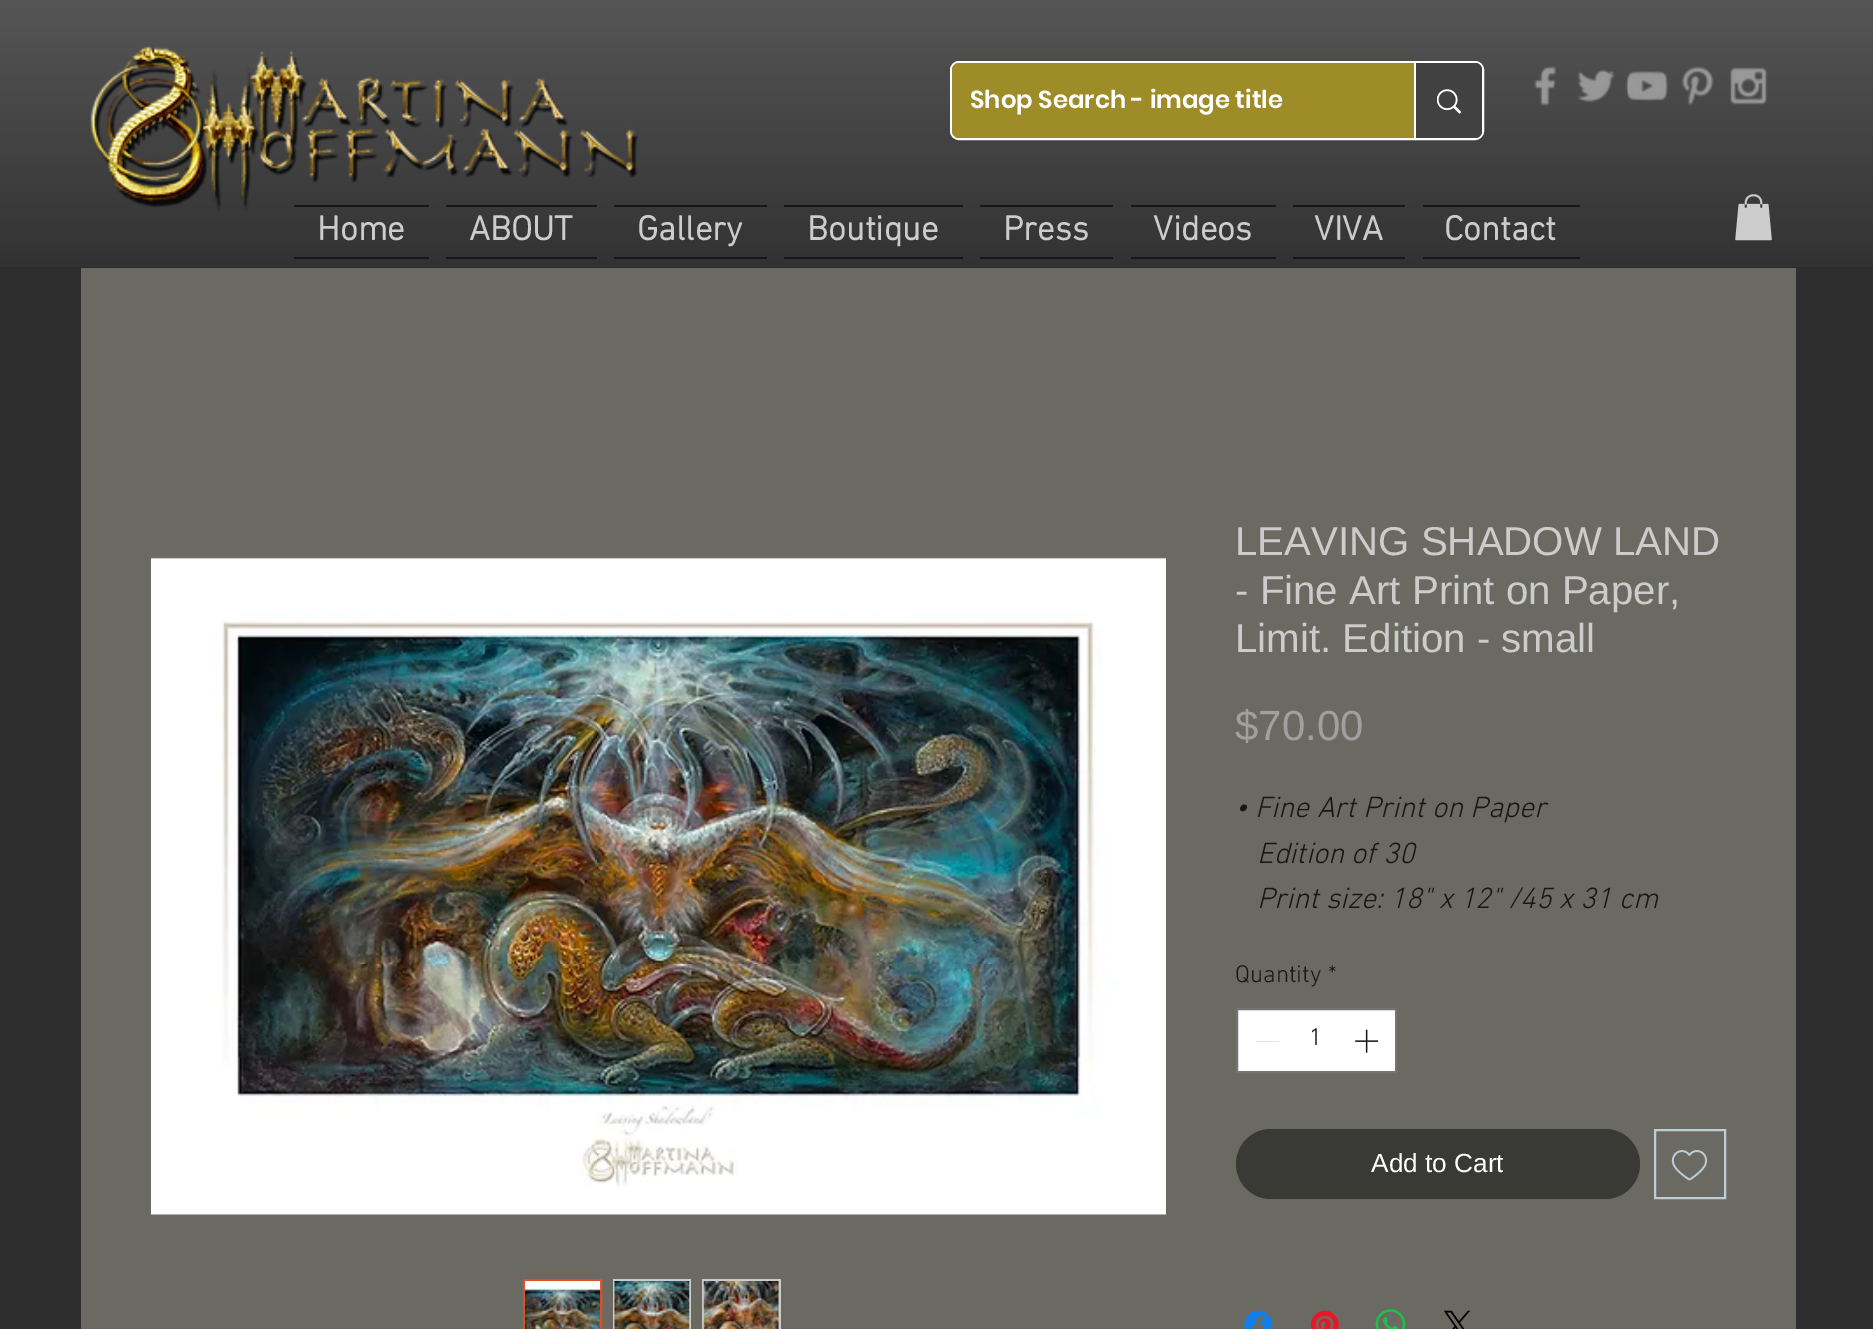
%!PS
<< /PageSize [1873 1329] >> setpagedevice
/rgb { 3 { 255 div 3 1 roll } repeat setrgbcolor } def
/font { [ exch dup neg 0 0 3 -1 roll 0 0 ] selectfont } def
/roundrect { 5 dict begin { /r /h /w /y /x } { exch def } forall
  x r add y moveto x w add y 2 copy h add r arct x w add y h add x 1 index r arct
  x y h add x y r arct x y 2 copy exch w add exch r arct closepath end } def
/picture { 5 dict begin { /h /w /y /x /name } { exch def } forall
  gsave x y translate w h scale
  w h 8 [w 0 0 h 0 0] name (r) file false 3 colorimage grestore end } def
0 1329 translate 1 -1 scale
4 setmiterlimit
47 46 46 rgb
0 0 1873 1329 rectfill
27 26 26 rgb
0 0 1873 268 rectfill
(img/1.rgb) 0 0 1873 268 picture
(img/2.rgb) 90 46 549 165 picture
255 255 255 rgb
2 setlinewidth
951 62 532 77 8 roundrect stroke
158 140 40 rgb
952 63 530 75 7 roundrect fill
65 65 65 rgb
1414 63 moveto 1475 63 lineto 1479 63 1482 66 1482 70 curveto 1482 131 lineto 1482 135 1479 138 1475 138 curveto 1414 138 lineto closepath fill
255 255 255 rgb
1414 63 2 75 rectfill
(img/3.rgb) 1437 89 24 25 picture
(img/4.rgb) 1534 66 23 40 picture
(img/5.rgb) 1577 69 38 34 picture
(img/6.rgb) 1625 71 43 30 picture
(img/7.rgb) 1681 66 33 40 picture
(img/8.rgb) 1730 67 38 38 picture
[
  [294 205 135 2 23 23 23]
  [294 257 135 2 23 23 23]
  [446 205 151 2 23 23 23]
  [446 257 151 2 23 23 23]
  [614 205 153 2 23 23 23]
  [614 257 153 2 23 23 23]
  [784 205 179 2 23 23 23]
  [784 257 179 2 23 23 23]
  [980 205 133 2 23 23 23]
  [980 257 133 2 23 23 23]
  [1131 205 145 2 23 23 23]
  [1131 257 145 2 23 23 23]
  [1293 205 112 2 23 23 23]
  [1293 257 112 2 23 23 23]
  [1423 205 157 2 23 23 23]
  [1423 257 157 2 23 23 23]
] { aload pop rgb rectfill } forall
(img/9.rgb) 1735 194 37 47 picture
107 106 98 rgb
81 268 1715 1061 rectfill
(img/10.rgb) 151 557 1015 658 picture
222 80 33 rgb
524 1280 77 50 rectstroke
(img/11.rgb) 525 1281 76 48 picture
204 204 204 rgb
613 1279 78 50 rectfill
(img/12.rgb) 614 1281 76 48 picture
702 1279 79 50 rectfill
(img/13.rgb) 703 1281 76 48 picture
255 255 255 rgb
1237 1009 moveto 1396 1009 lineto 1396 1072 lineto 1237 1072 lineto closepath gsave fill grestore
116 116 116 rgb
stroke
227 227 227 rgb
1256 1041 23 1 rectfill
(img/14.rgb) 1355 1029 24 24 picture
57 57 54 rgb
1236 1129 404 70 35 roundrect fill
188 206 215 rgb
1655 1130 70 68 rectstroke
(img/15.rgb) 1671 1150 36 31 picture
(img/16.rgb) 1244 1310 29 19 picture
(img/17.rgb) 1310 1310 29 19 picture
(img/18.rgb) 1375 1309 31 20 picture
(img/19.rgb) 1443 1310 27 19 picture
/Poppins-SemiBold 24.5 font
255 255 255 rgb
970 108 moveto (Shop Search - image title) show
/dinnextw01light-Bold 35 font
204 204 204 rgb
[
  [(Home) 317 240]
  [(ABOUT) 469 240]
  [(Gallery) 637 240]
  [(Boutique) 807 240]
  [(Press) 1003 240]
  [(Videos) 1153 240]
  [(VIVA) 1314 240]
  [(Contact) 1444 240]
] { aload pop moveto show } forall
/LiberationSans-Regular 40.25 font
[
  [(LEAVING SHADOW LAND) 1235 555]
  [(- Fine Art Print on Paper,) 1235 604]
  [(Limit. Edition - small) 1235 652]
] { aload pop moveto show } forall
/LiberationSans-Regular 42 font
160 160 159 rgb
1235 740 moveto ($70.00) show
/dinnextw01light-LightItalic 29.75 font
23 23 23 rgb
[
  [(• Fine Art Print on Paper) 1235 817]
  [(Edition of 30) 1257 863]
  [(Print size: 18" x 12" /45 x 31 cm) 1257 908]
] { aload pop moveto show } forall
/dinnextw01light-Light 24.5 font
[
  [(Quantity) 1235 982]
  [(*) 1328 982]
  [(1) 1309 1045]
] { aload pop moveto show } forall
/LiberationSans-Regular 26.25 font
255 255 255 rgb
1371 1172 moveto (Add to Cart) show
showpage
